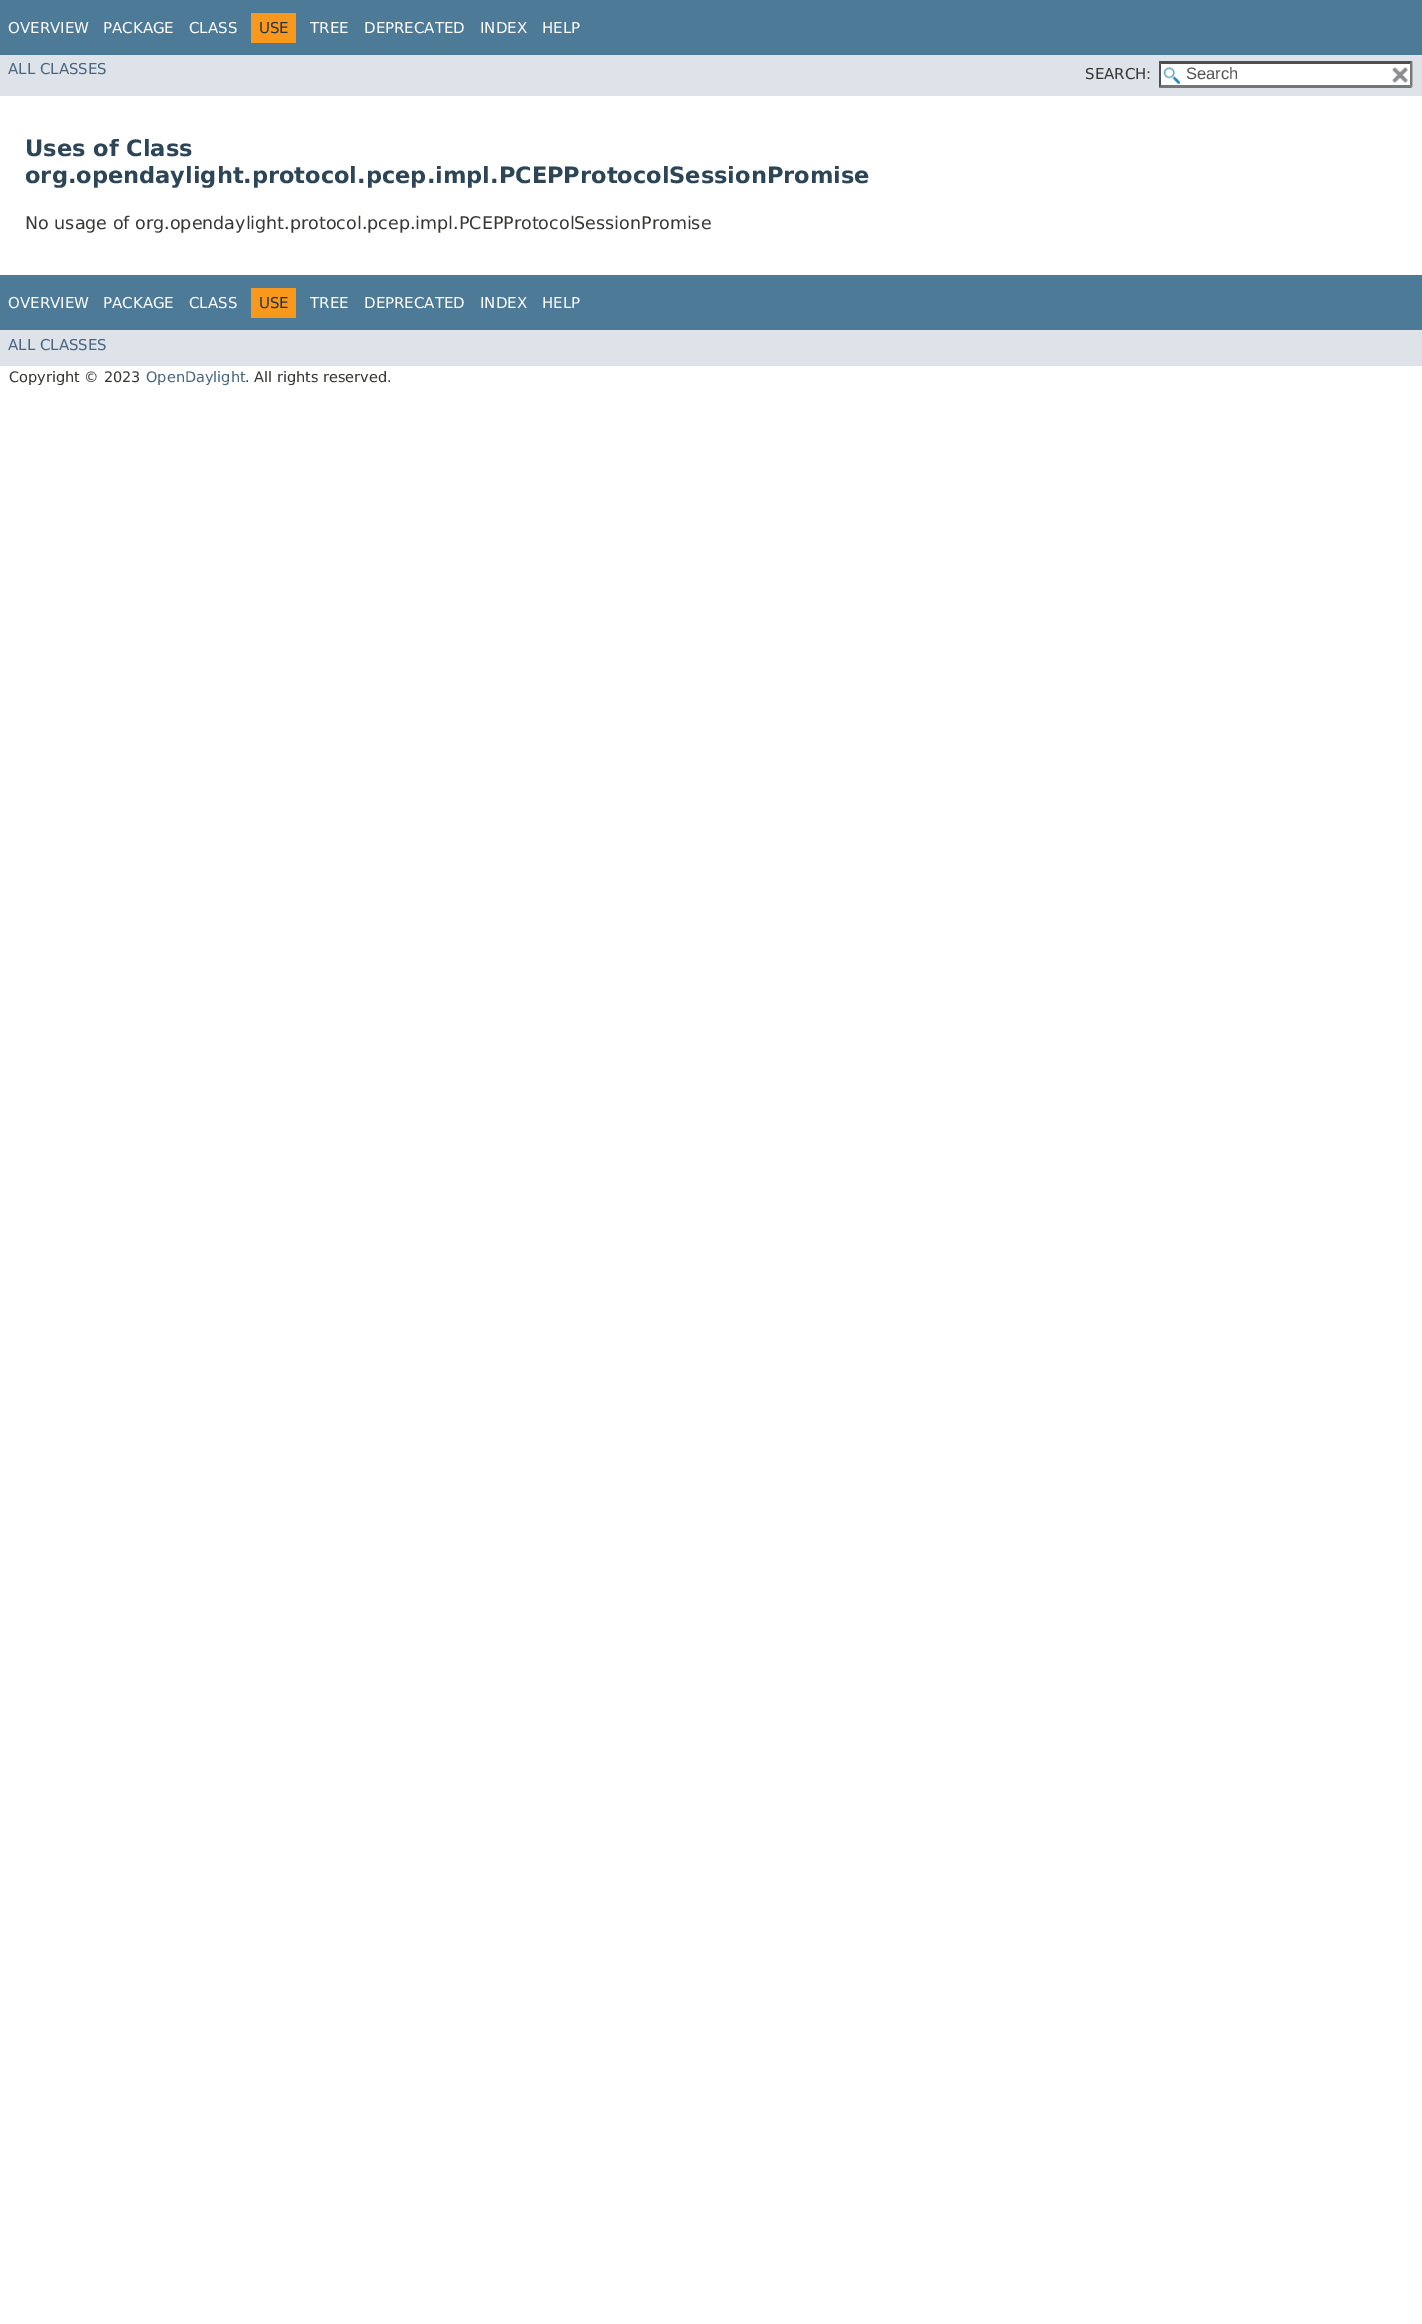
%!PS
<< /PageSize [1422 2324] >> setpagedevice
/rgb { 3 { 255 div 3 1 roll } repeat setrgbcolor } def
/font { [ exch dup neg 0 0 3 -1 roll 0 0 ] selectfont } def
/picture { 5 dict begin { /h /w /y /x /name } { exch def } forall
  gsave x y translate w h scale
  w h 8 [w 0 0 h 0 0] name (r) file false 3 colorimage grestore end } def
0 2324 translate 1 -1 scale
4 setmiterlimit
255 255 255 rgb
0 0 1422 2324 rectfill
[
  [0 0 1422 55 77 122 151]
  [251 13 45 30 248 152 29]
  [0 55 1422 41 222 227 233]
  [1159 61 254 27 255 255 255]
] { aload pop rgb rectfill } forall
(img/1.rgb) 1163 67 17 17 picture
79 79 79 rgb
1159 61 moveto 1412 61 lineto 1410 64 lineto 1161 64 lineto closepath fill
118 118 118 rgb
1412.5 61 moveto 1412.5 87.5 lineto 1410 85 lineto 1410 64 lineto closepath fill
1412 88 moveto 1159 88 lineto 1161 85 lineto 1410 85 lineto closepath fill
79 79 79 rgb
1159 87.5 moveto 1159 61 lineto 1161 64 lineto 1161 85 lineto closepath fill
(img/2.rgb) 1392 67 16 16 picture
[
  [0 275 1422 55 77 122 151]
  [251 288 45 30 248 152 29]
  [0 330 1422 36 222 227 233]
] { aload pop rgb rectfill } forall
/DejaVuSans-Regular 15 font
255 255 255 rgb
[
  [(OVERVIEW) 8 33]
  [(PACKAGE) 103 33]
  [(CLASS) 189 33]
] { aload pop moveto show } forall
37 52 65 rgb
259 33 moveto (USE) show
255 255 255 rgb
[
  [(TREE) 310 33]
  [(DEPRECATED) 364 33]
  [(INDEX) 480 33]
  [(HELP) 542 33]
] { aload pop moveto show } forall
74 103 130 rgb
8 74 moveto (ALL CLASSES) show
53 56 51 rgb
1085 79 moveto (SEARCH:) show
/LiberationSans-Regular 16.5 font
84 84 84 rgb
1186 79 moveto (Search) show
/DejaVuSans-Bold 22.5 font
44 69 87 rgb
25 156 moveto (Uses of Class) show
25 183 moveto (org.opendaylight.protocol.pcep.impl.PCEPProtocolSessionPromise) show
/DejaVuSans-Regular 17.5 font
53 56 51 rgb
25 229 moveto (No usage of org.opendaylight.protocol.pcep.impl.PCEPProtocolSessionPromise) show
/DejaVuSans-Regular 15 font
255 255 255 rgb
[
  [(OVERVIEW) 8 308]
  [(PACKAGE) 103 308]
  [(CLASS) 189 308]
] { aload pop moveto show } forall
37 52 65 rgb
259 308 moveto (USE) show
255 255 255 rgb
[
  [(TREE) 310 308]
  [(DEPRECATED) 364 308]
  [(INDEX) 480 308]
  [(HELP) 542 308]
] { aload pop moveto show } forall
74 103 130 rgb
8 350 moveto (ALL CLASSES) show
/DejaVuSans-Regular 14.5 font
53 56 51 rgb
9 382 moveto (Copyright © 2023) show
74 103 130 rgb
146 382 moveto (OpenDaylight) show
53 56 51 rgb
245 382 moveto (. All rights reserved.) show
showpage
